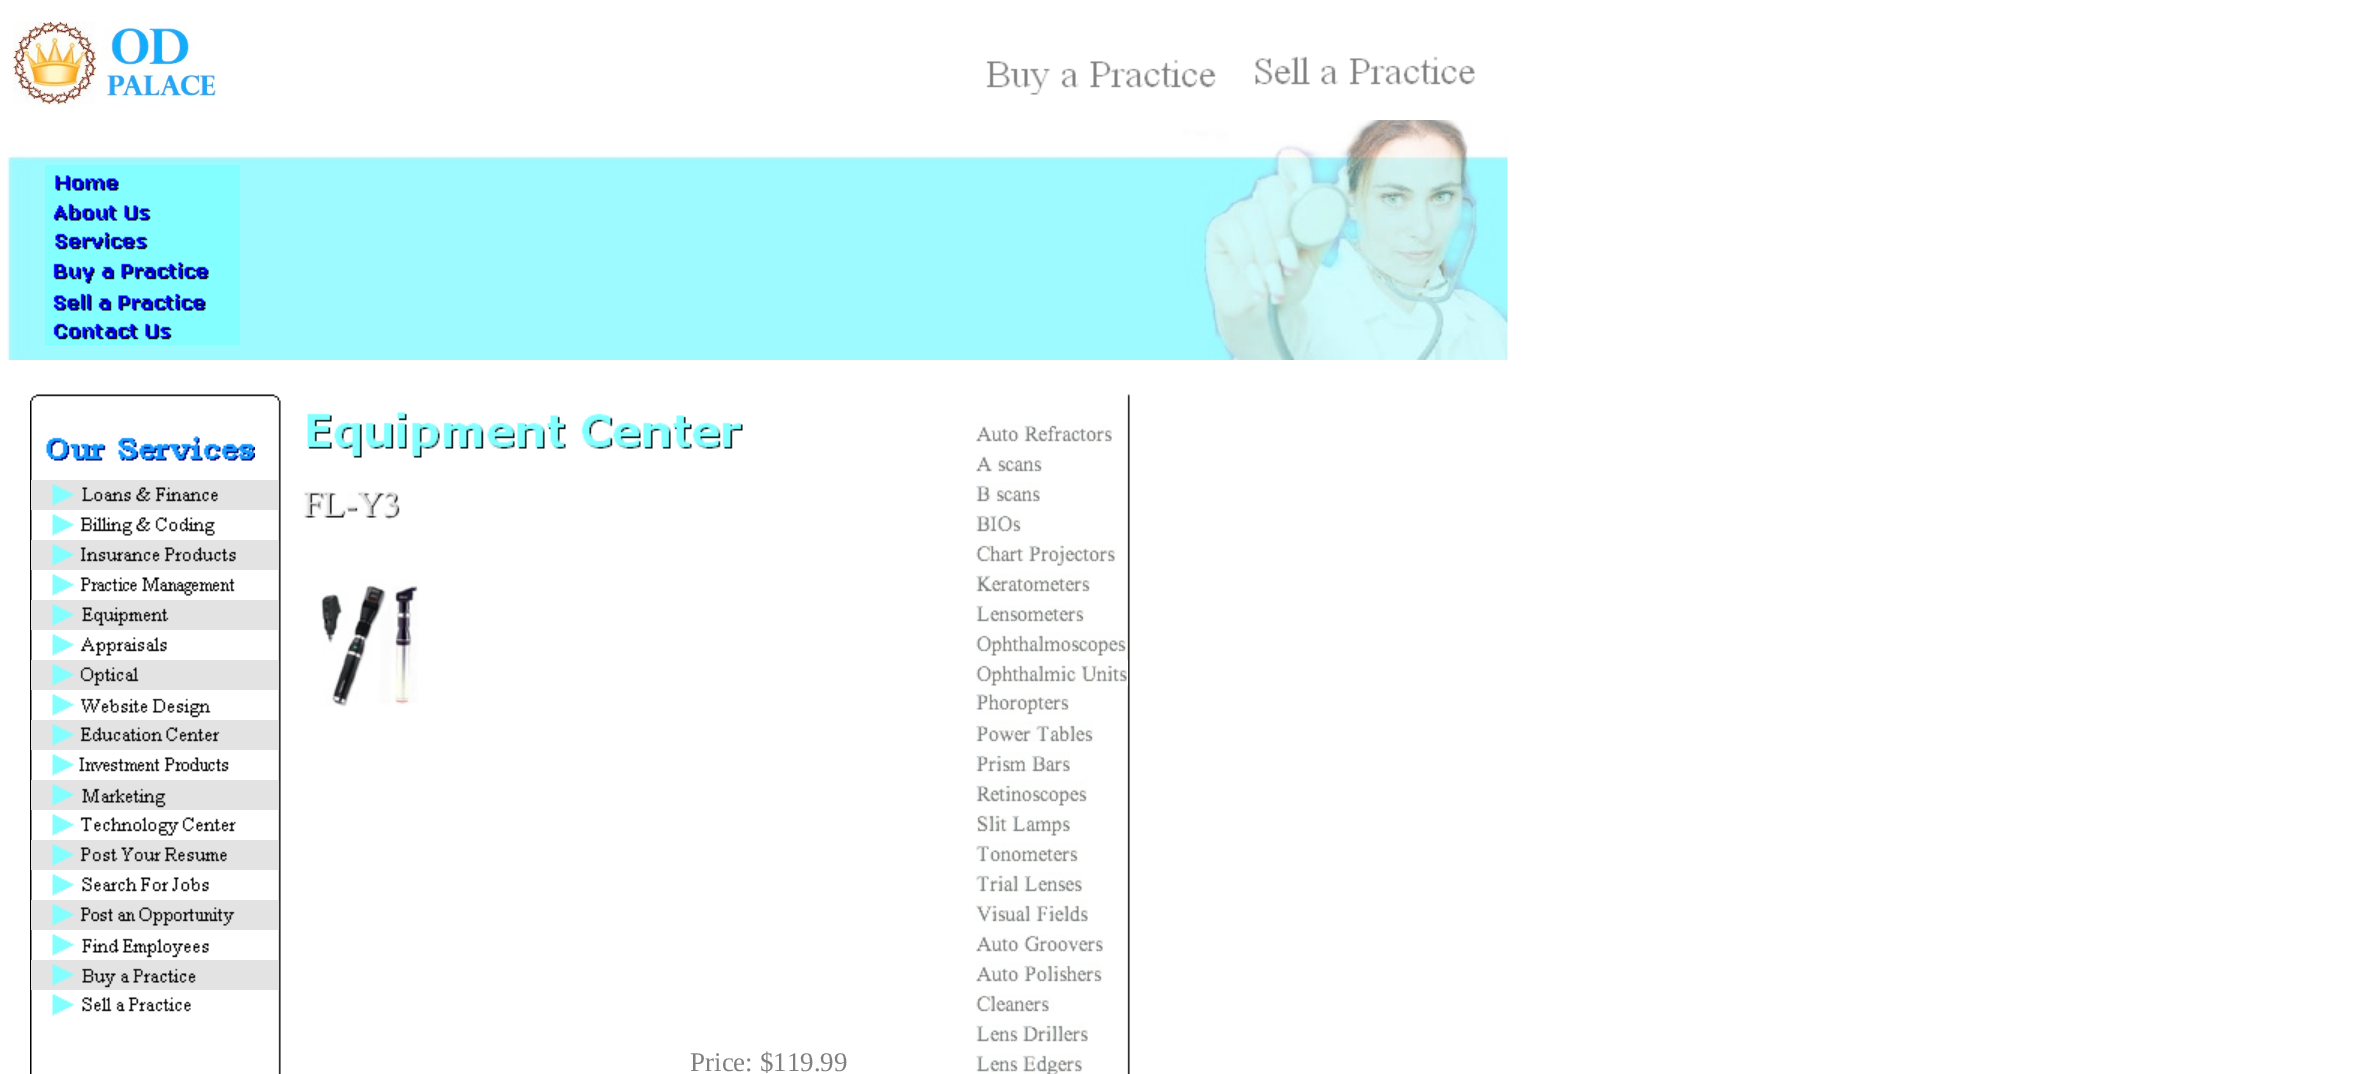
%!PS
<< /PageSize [2361 1074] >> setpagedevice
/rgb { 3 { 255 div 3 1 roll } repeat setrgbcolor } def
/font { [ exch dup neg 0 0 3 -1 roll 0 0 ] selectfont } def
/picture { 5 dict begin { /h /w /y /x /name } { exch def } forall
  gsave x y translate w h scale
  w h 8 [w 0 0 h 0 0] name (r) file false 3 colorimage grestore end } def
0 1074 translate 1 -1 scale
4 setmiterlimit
255 255 255 rgb
0 0 2361 1074 rectfill
(img/1.rgb) 13 21 209 84 picture
(img/2.rgb) 986 59 230 36 picture
(img/3.rgb) 1255 56 220 29 picture
(img/4.rgb) 7 120 1501 240 picture
(img/5.rgb) 45 165 195 30 picture
(img/6.rgb) 45 195 195 30 picture
(img/7.rgb) 45 225 195 30 picture
(img/8.rgb) 45 255 195 30 picture
(img/9.rgb) 45 285 195 30 picture
(img/10.rgb) 45 315 195 30 picture
(img/11.rgb) 30 394 251 680 picture
(img/12.rgb) 307 412 436 46 picture
(img/13.rgb) 976 423 136 19 picture
(img/14.rgb) 1127 394 3 680 picture
(img/15.rgb) 46 436 209 25 picture
(img/16.rgb) 976 455 66 17 picture
227 227 227 rgb
31 480 14 30 rectfill
(img/17.rgb) 45 480 195 30 picture
240 480 38 30 rectfill
(img/18.rgb) 303 491 97 29 picture
(img/19.rgb) 976 482 64 20 picture
(img/20.rgb) 52 514 163 22 picture
(img/21.rgb) 976 515 45 17 picture
31 540 14 30 rectfill
(img/22.rgb) 45 540 195 30 picture
240 540 38 30 rectfill
(img/23.rgb) 976 545 141 21 picture
(img/24.rgb) 52 574 183 22 picture
(img/25.rgb) 320 579 100 128 picture
(img/26.rgb) 976 573 114 19 picture
31 600 14 30 rectfill
(img/27.rgb) 45 600 195 30 picture
240 600 38 30 rectfill
(img/28.rgb) 976 605 108 17 picture
(img/29.rgb) 52 634 115 22 picture
(img/30.rgb) 976 632 150 24 picture
31 660 14 30 rectfill
(img/31.rgb) 45 660 195 30 picture
240 660 38 30 rectfill
(img/32.rgb) 976 660 152 26 picture
(img/33.rgb) 52 694 159 24 picture
(img/34.rgb) 976 694 93 21 picture
31 720 14 30 rectfill
(img/35.rgb) 45 720 195 30 picture
240 720 38 30 rectfill
(img/36.rgb) 976 721 117 21 picture
(img/37.rgb) 52 754 177 22 picture
(img/38.rgb) 976 752 94 20 picture
31 780 14 30 rectfill
(img/39.rgb) 45 780 195 30 picture
240 780 38 30 rectfill
(img/40.rgb) 976 780 111 26 picture
(img/41.rgb) 52 814 184 22 picture
(img/42.rgb) 977 815 93 21 picture
31 840 14 30 rectfill
(img/43.rgb) 45 840 195 30 picture
240 840 38 30 rectfill
(img/44.rgb) 976 843 102 19 picture
(img/45.rgb) 52 874 157 22 picture
(img/46.rgb) 975 872 107 20 picture
31 900 14 30 rectfill
(img/47.rgb) 45 900 195 30 picture
240 900 38 30 rectfill
(img/48.rgb) 975 900 113 22 picture
(img/49.rgb) 52 934 157 24 picture
(img/50.rgb) 976 935 127 17 picture
31 960 14 30 rectfill
(img/51.rgb) 45 960 195 30 picture
240 960 38 30 rectfill
(img/52.rgb) 976 962 126 20 picture
(img/53.rgb) 52 994 139 22 picture
(img/54.rgb) 976 995 78 17 picture
(img/55.rgb) 976 1023 112 19 picture
(img/56.rgb) 976 1054 106 20 picture
/LiberationSerif-Regular 27 font
128 128 128 rgb
690 1071 moveto (Price: $119.99) show
showpage
